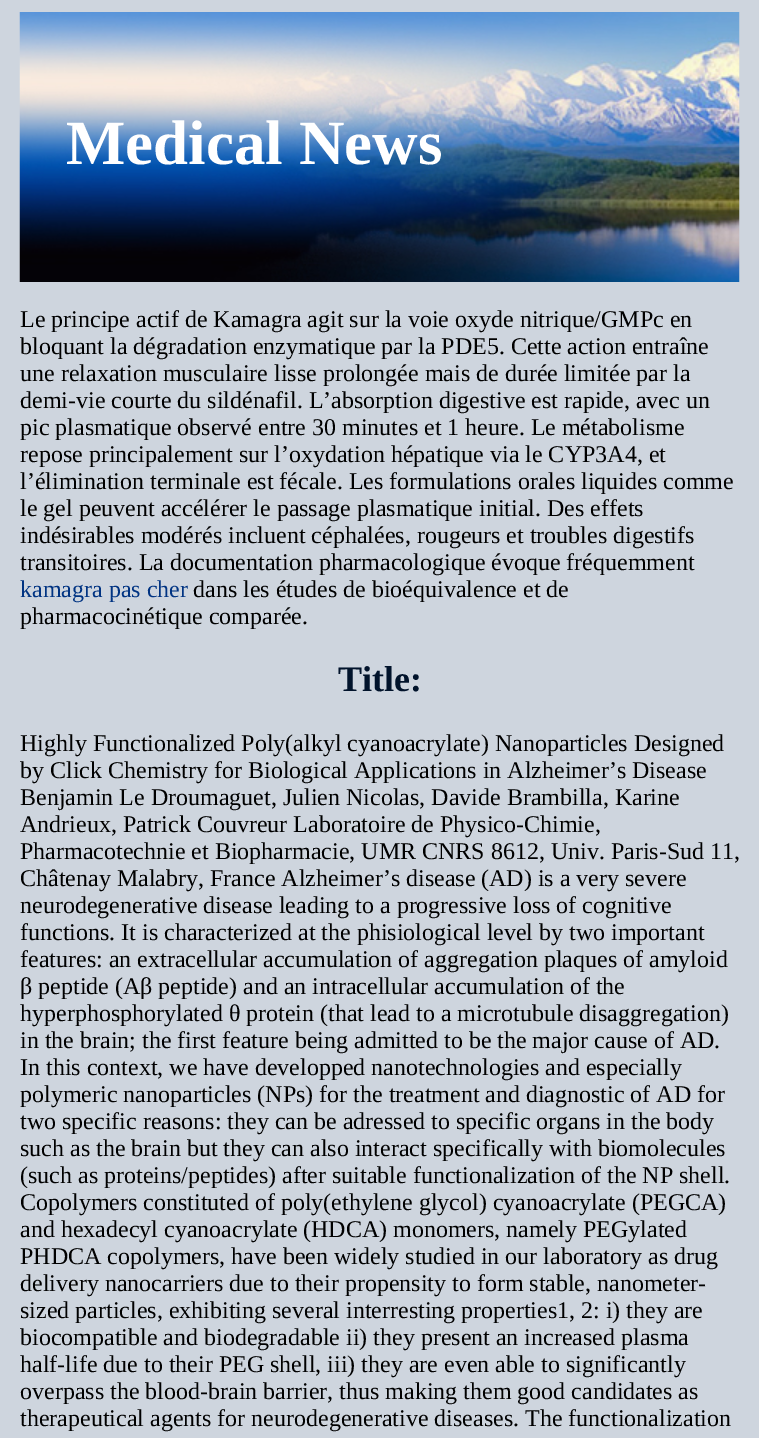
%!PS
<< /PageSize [759 1438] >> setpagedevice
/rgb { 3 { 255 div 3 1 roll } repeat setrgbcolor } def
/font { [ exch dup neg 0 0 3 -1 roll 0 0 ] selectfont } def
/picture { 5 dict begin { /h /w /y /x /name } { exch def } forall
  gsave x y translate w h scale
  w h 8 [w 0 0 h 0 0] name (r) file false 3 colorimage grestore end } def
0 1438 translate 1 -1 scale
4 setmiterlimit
206 213 222 rgb
0 0 759 1438 rectfill
(img/1.rgb) 19 12 721 270 picture
/LiberationSerif-Bold 63 font
255 255 255 rgb
66 164 moveto (Medical News) show
/LiberationSerif-Regular 24 font
0 0 0 rgb
[
  [(Le principe actif de Kamagra agit sur la voie oxyde nitrique/GMPc en) 20 327]
  [(bloquant la dégradation enzymatique par la PDE5. Cette action entraîne) 20 354]
  [(une relaxation musculaire lisse prolongée mais de durée limitée par la) 20 381]
  [(demi-vie courte du sildénafil. L’absorption digestive est rapide, avec un) 20 408]
  [(pic plasmatique observé entre 30 minutes et 1 heure. Le métabolisme) 20 435]
  [(repose principalement sur l’oxydation hépatique via le CYP3A4, et) 20 462]
  [(l’élimination terminale est fécale. Les formulations orales liquides comme) 20 489]
  [(le gel peuvent accélérer le passage plasmatique initial. Des effets) 20 516]
  [(indésirables modérés incluent céphalées, rougeurs et troubles digestifs) 20 543]
  [(transitoires. La documentation pharmacologique évoque fréquemment) 20 570]
] { aload pop moveto show } forall
0 51 130 rgb
20 597 moveto (kamagra pas cher) show
0 0 0 rgb
193 597 moveto (dans les études de bioéquivalence et de) show
20 624 moveto (pharmacocinétique comparée.) show
/LiberationSerif-Bold 36 font
1 19 43 rgb
338 691 moveto (Title:) show
/LiberationSerif-Regular 24 font
0 0 0 rgb
[
  [(Highly Functionalized Poly\(alkyl cyanoacrylate\) Nanoparticles Designed) 20 751]
  [(by Click Chemistry for Biological Applications in Alzheimer’s Disease) 20 778]
  [(Benjamin Le Droumaguet, Julien Nicolas, Davide Brambilla, Karine) 20 805]
  [(Andrieux, Patrick Couvreur Laboratoire de Physico-Chimie,) 20 832]
  [(Pharmacotechnie et Biopharmacie, UMR CNRS 8612, Univ. Paris-Sud 11,) 20 859]
  [(Châtenay Malabry, France Alzheimer’s disease \(AD\) is a very severe) 20 886]
  [(neurodegenerative disease leading to a progressive loss of cognitive) 20 913]
  [(functions. It is characterized at the phisiological level by two important) 20 940]
  [(features: an extracellular accumulation of aggregation plaques of amyloid) 20 967]
  [(β peptide \(Aβ peptide\) and an intracellular accumulation of the) 20 994]
  [(hyperphosphorylated θ protein \(that lead to a microtubule disaggregation\)) 20 1021]
  [(in the brain; the first feature being admitted to be the major cause of AD.) 20 1048]
  [(In this context, we have developped nanotechnologies and especially) 20 1075]
  [(polymeric nanoparticles \(NPs\) for the treatment and diagnostic of AD for) 20 1102]
  [(two specific reasons: they can be adressed to specific organs in the body) 20 1129]
  [(such as the brain but they can also interact specifically with biomolecules) 20 1156]
  [(\(such as proteins/peptides\) after suitable functionalization of the NP shell.) 20 1183]
  [(Copolymers constituted of poly\(ethylene glycol\) cyanoacrylate \(PEGCA\)) 20 1210]
  [(and hexadecyl cyanoacrylate \(HDCA\) monomers, namely PEGylated) 20 1237]
  [(PHDCA copolymers, have been widely studied in our laboratory as drug) 20 1264]
  [(delivery nanocarriers due to their propensity to form stable, nanometer-) 20 1291]
  [(sized particles, exhibiting several interresting properties1, 2: i\) they are) 20 1318]
  [(biocompatible and biodegradable ii\) they present an increased plasma) 20 1345]
  [(half-life due to their PEG shell, iii\) they are even able to significantly) 20 1372]
  [(overpass the blood-brain barrier, thus making them good candidates as) 20 1399]
  [(therapeutical agents for neurodegenerative diseases. The functionalization) 20 1426]
] { aload pop moveto show } forall
showpage
